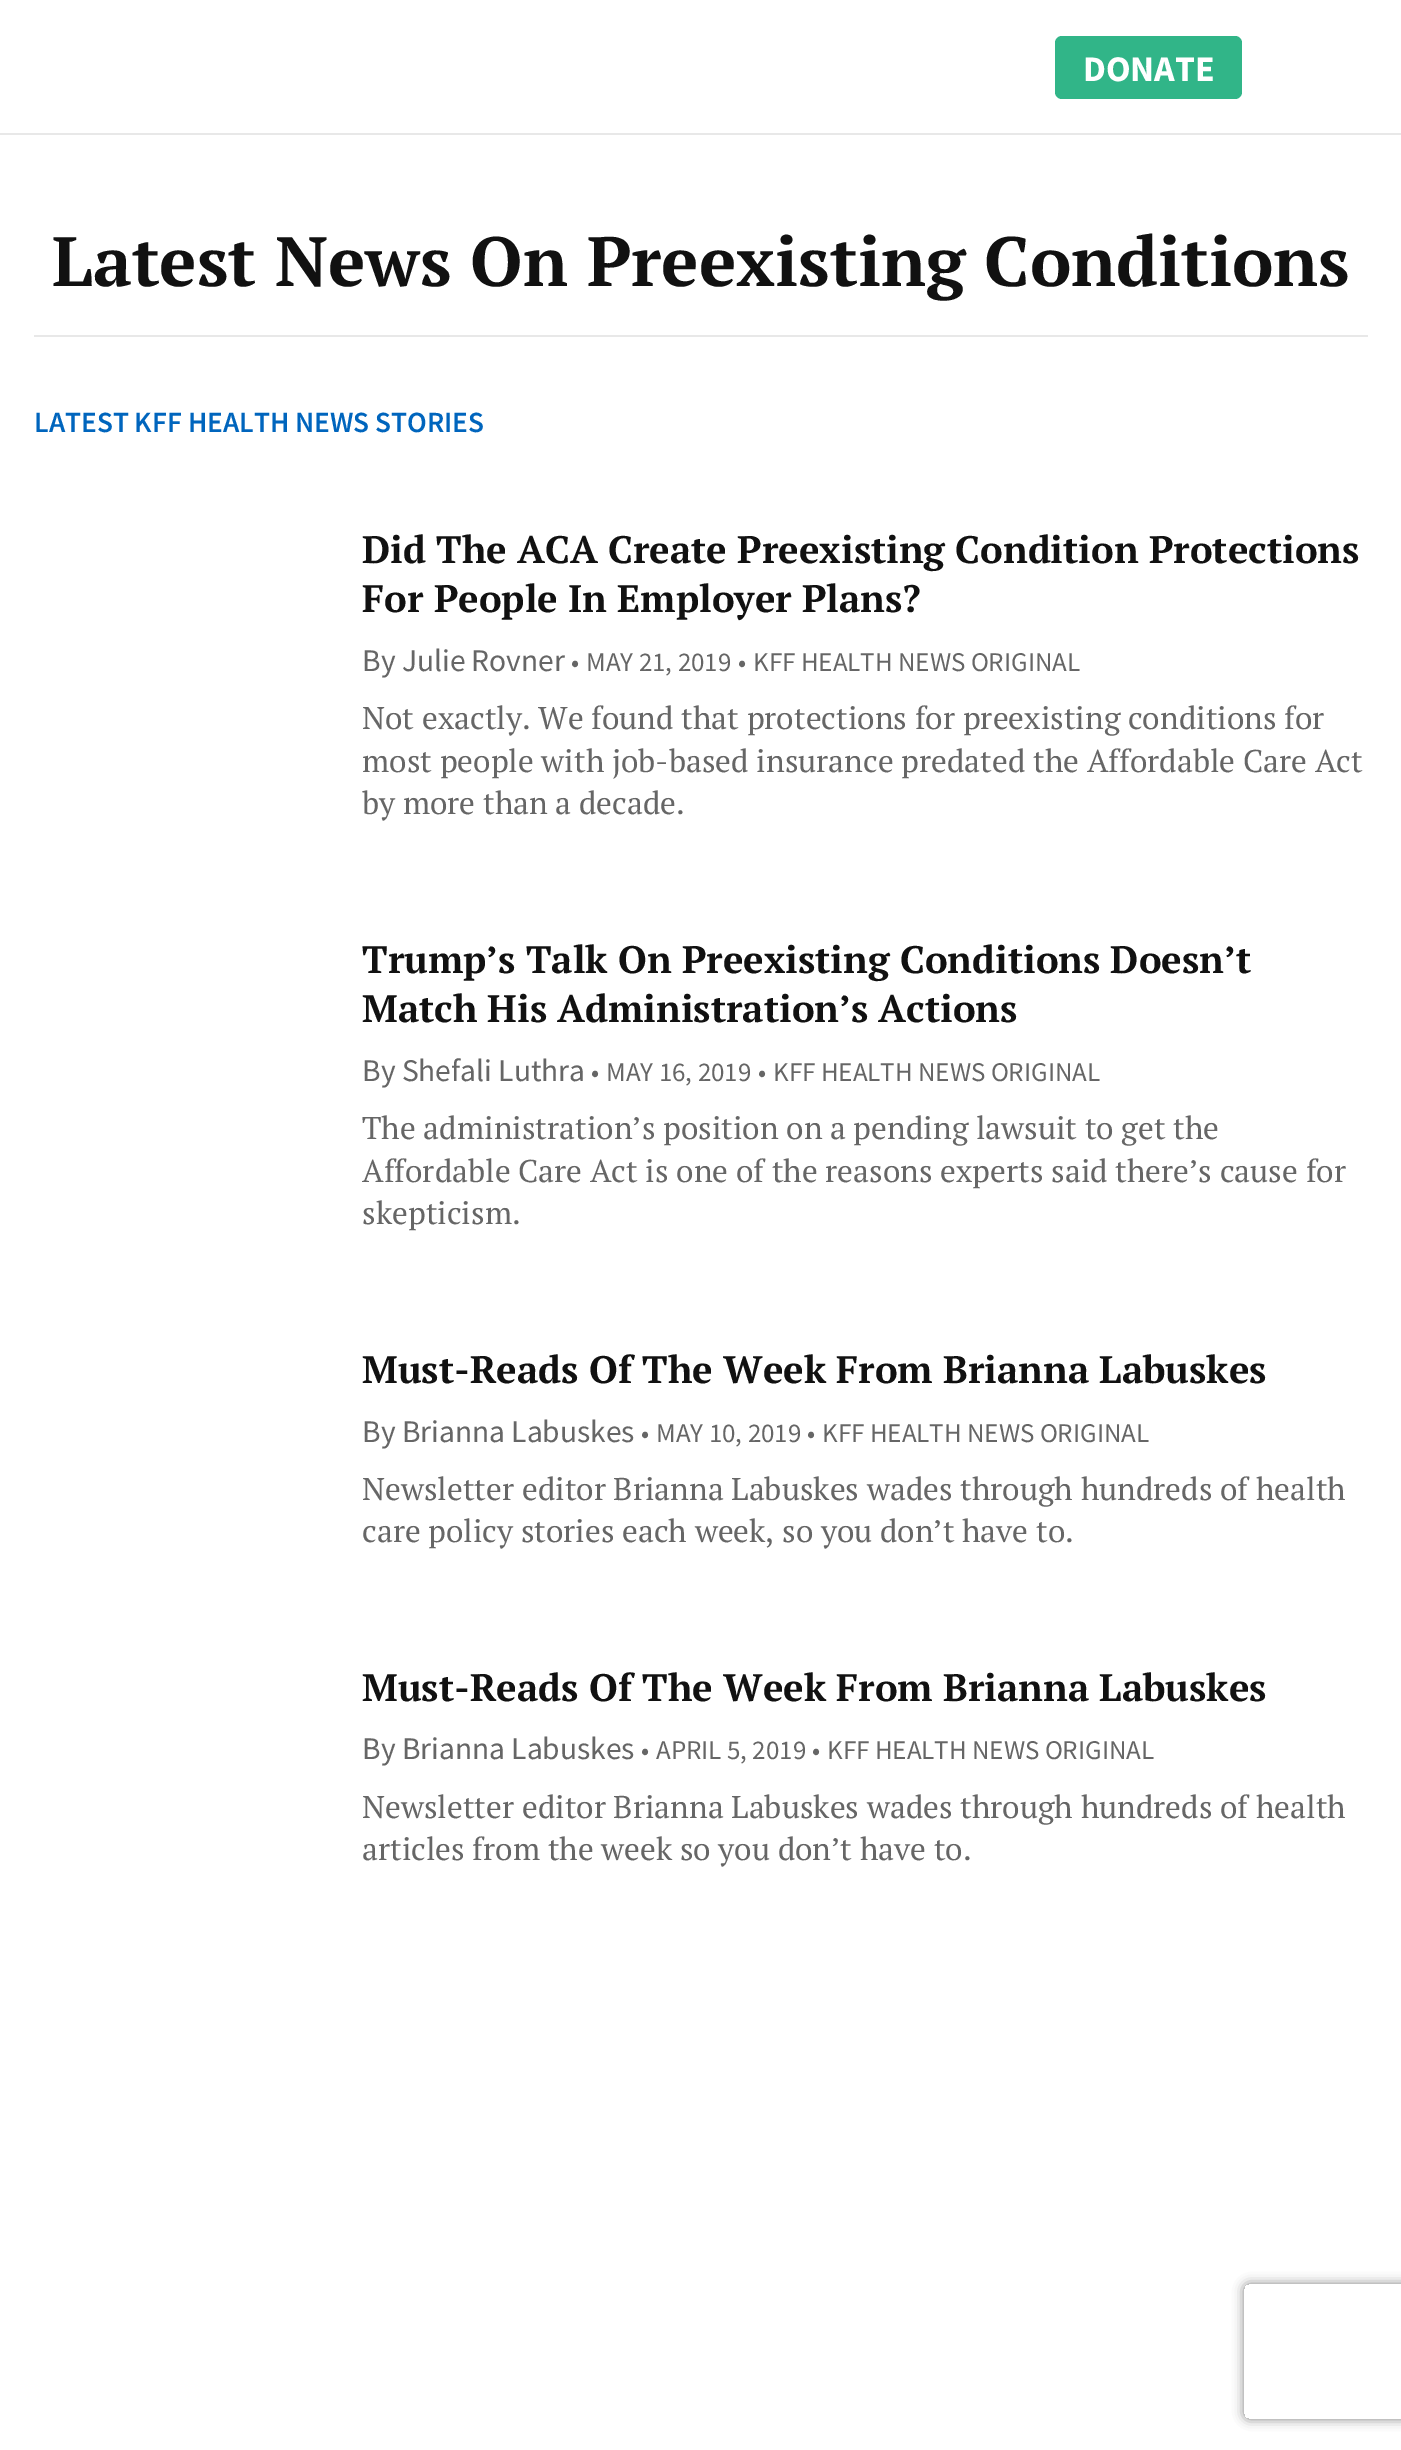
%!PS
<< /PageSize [1401 2450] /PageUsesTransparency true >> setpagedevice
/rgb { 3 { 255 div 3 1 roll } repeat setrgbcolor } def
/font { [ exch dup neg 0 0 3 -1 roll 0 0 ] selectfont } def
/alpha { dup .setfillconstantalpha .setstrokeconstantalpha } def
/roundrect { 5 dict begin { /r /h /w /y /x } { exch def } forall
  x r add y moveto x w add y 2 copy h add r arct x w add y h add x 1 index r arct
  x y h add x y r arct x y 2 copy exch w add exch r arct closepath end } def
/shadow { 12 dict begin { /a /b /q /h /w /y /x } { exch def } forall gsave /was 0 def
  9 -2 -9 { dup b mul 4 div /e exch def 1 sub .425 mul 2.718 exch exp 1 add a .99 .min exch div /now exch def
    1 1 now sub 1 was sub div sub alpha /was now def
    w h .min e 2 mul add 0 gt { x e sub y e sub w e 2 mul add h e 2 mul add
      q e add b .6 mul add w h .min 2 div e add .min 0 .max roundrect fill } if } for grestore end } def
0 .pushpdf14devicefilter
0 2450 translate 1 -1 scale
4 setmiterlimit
255 255 255 rgb
0 0 1401 2450 rectfill
49 181 136 rgb
1055 36 187 63 7 roundrect fill
232 232 232 rgb
0 133 1401 2 rectfill
34 335 1334 2 rectfill
gsave
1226 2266 moveto 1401 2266 lineto 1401 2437 lineto 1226 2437 lineto closepath 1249 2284 moveto 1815 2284 lineto 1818 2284 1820 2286 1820 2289 curveto 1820 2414 lineto 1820 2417 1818 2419 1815 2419 curveto 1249 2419 lineto 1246 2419 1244 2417 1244 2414 curveto 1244 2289 lineto 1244 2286 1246 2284 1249 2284 curveto closepath eoclip newpath
128 128 128 rgb
1244 2284 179 135 5 5.5 1 shadow
grestore
/SourceSansPro-Bold 36 font
255 255 255 rgb
1083 81 moveto (DONATE) show
/PTSerif-Bold 69.75 font
17 17 17 rgb
52 286 moveto (Latest News On Preexisting Conditions) show
/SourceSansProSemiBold-SemiBold 29.25 font
0 101 189 rgb
34 432 moveto (LATEST KFF HEALTH NEWS STORIES) show
/PTSerif-Bold 38.25 font
17 17 17 rgb
362 563 moveto (Did The ACA Create Preexisting Condition Protections) show
362 612 moveto (For People In Employer Plans?) show
/SourceSansPro-Regular 31.5 font
102 102 102 rgb
362 671 moveto (By Julie Rovner) show
/SourceSansPro-Regular 27 font
[
  [(•) 571 671]
  [(MAY 21, 2019) 586 671]
  [(•) 738 671]
  [(KFF HEALTH NEWS ORIGINAL) 753 671]
] { aload pop moveto show } forall
/PTSerif-Regular 31.5 font
[
  [(Not exactly. We found that protections for preexisting conditions for) 362 729]
  [(most people with job-based insurance predated the Affordable Care Act) 362 772]
  [(by more than a decade.) 362 814]
] { aload pop moveto show } forall
/PTSerif-Bold 38.25 font
17 17 17 rgb
362 973 moveto (Trump’s Talk On Preexisting Conditions Doesn’t) show
362 1022 moveto (Match His Administration’s Actions) show
/SourceSansPro-Regular 31.5 font
102 102 102 rgb
362 1081 moveto (By Shefali Luthra) show
/SourceSansPro-Regular 27 font
[
  [(•) 591 1081]
  [(MAY 16, 2019) 606 1081]
  [(•) 758 1081]
  [(KFF HEALTH NEWS ORIGINAL) 773 1081]
] { aload pop moveto show } forall
/PTSerif-Regular 31.5 font
[
  [(The administration’s position on a pending lawsuit to get the) 362 1139]
  [(Affordable Care Act is one of the reasons experts said there’s cause for) 362 1182]
  [(skepticism.) 362 1224]
] { aload pop moveto show } forall
/PTSerif-Bold 38.25 font
17 17 17 rgb
362 1383 moveto (Must-Reads Of The Week From Brianna Labuskes) show
/SourceSansPro-Regular 31.5 font
102 102 102 rgb
362 1442 moveto (By Brianna Labuskes) show
/SourceSansPro-Regular 27 font
[
  [(•) 641 1442]
  [(MAY 10, 2019) 656 1442]
  [(•) 807 1442]
  [(KFF HEALTH NEWS ORIGINAL) 822 1442]
] { aload pop moveto show } forall
/PTSerif-Regular 31.5 font
362 1500 moveto (Newsletter editor Brianna Labuskes wades through hundreds of health) show
362 1542 moveto (care policy stories each week, so you don’t have to.) show
/PTSerif-Bold 38.25 font
17 17 17 rgb
362 1701 moveto (Must-Reads Of The Week From Brianna Labuskes) show
/SourceSansPro-Regular 31.5 font
102 102 102 rgb
362 1759 moveto (By Brianna Labuskes) show
/SourceSansPro-Regular 27 font
[
  [(•) 641 1759]
  [(APRIL 5, 2019) 656 1759]
  [(•) 812 1759]
  [(KFF HEALTH NEWS ORIGINAL) 827 1759]
] { aload pop moveto show } forall
/PTSerif-Regular 31.5 font
362 1818 moveto (Newsletter editor Brianna Labuskes wades through hundreds of health) show
362 1860 moveto (articles from the week so you don’t have to.) show
.poppdf14devicefilter showpage
